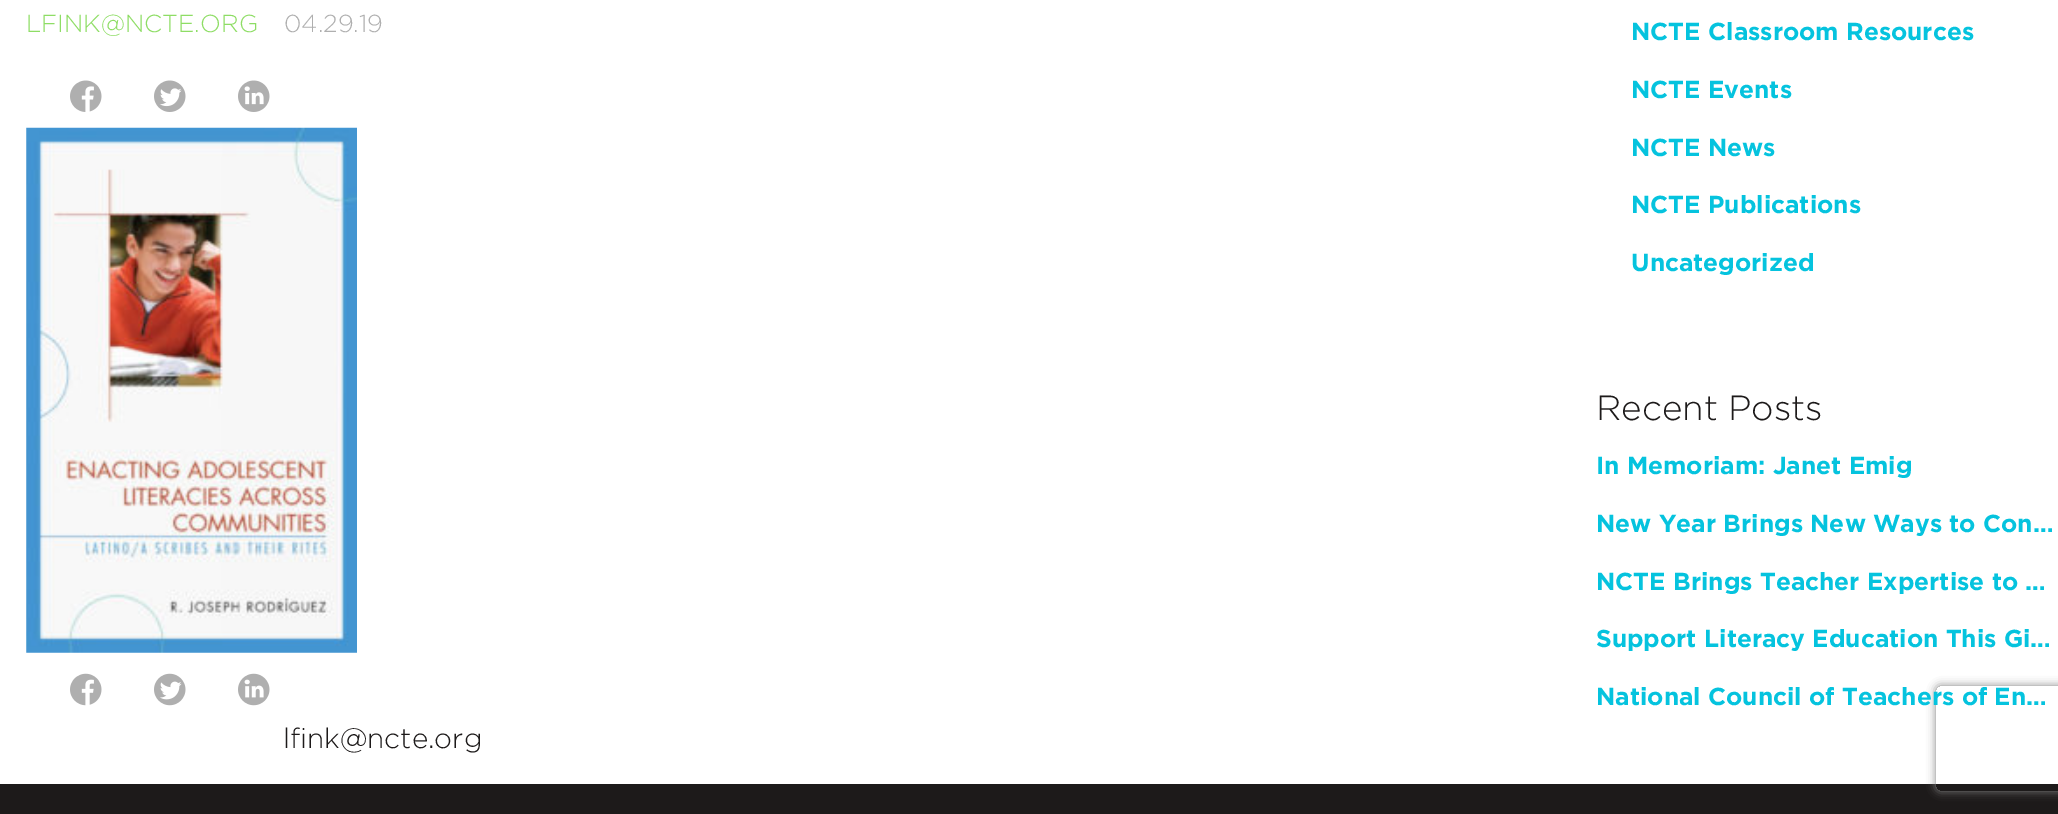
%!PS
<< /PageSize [2058 814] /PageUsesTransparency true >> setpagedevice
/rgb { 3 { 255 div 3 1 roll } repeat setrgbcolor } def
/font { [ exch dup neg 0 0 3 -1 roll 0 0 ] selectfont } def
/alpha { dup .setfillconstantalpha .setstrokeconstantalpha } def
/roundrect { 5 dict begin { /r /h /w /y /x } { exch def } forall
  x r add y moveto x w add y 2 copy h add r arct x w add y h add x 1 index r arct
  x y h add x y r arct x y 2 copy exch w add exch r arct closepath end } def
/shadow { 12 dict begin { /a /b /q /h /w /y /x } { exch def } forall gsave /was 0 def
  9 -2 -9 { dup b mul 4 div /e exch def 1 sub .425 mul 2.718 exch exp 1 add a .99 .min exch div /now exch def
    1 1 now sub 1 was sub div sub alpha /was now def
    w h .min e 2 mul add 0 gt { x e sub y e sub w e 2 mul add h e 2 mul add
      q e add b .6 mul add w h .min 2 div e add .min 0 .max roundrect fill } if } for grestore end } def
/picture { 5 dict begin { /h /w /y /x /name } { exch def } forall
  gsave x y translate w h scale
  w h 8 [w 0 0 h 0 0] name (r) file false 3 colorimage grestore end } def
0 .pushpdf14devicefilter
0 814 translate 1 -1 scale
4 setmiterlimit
255 255 255 rgb
0 0 2058 814 rectfill
(img/1.rgb) 70 80 32 32 picture
(img/2.rgb) 154 80 32 32 picture
(img/3.rgb) 238 80 32 32 picture
(img/4.rgb) 26 127 331 526 picture
(img/5.rgb) 70 673 32 33 picture
(img/6.rgb) 154 673 32 33 picture
(img/7.rgb) 238 673 32 33 picture
29 26 26 rgb
0 784 2058 30 rectfill
gsave
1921 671 moveto 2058 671 lineto 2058 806 lineto 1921 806 lineto closepath 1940 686 moveto 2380 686 lineto 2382 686 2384 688 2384 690 curveto 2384 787 lineto 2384 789 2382 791 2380 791 curveto 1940 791 lineto 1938 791 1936 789 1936 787 curveto 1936 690 lineto 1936 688 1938 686 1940 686 curveto closepath eoclip newpath
128 128 128 rgb
1936 686 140 105 4 4.5 1 shadow
grestore
/Gotham-Light 24.5 font
142 221 101 rgb
26 32 moveto (LFINK@NCTE.ORG) show
175 175 175 rgb
284 32 moveto (04.29.19) show
/Gotham-Light 28 font
29 26 26 rgb
283 748 moveto (lfink@ncte.org) show
/Gotham-Bold 24.5 font
5 195 222 rgb
[
  [(NCTE Classroom Resources) 1631 40]
  [(NCTE Events) 1631 98]
  [(NCTE News) 1631 156]
  [(NCTE Publications) 1631 213]
  [(Uncategorized) 1631 271]
] { aload pop moveto show } forall
/Gotham-Light 35 font
29 26 26 rgb
1596 420 moveto (Recent Posts) show
/Gotham-Bold 24.5 font
5 195 222 rgb
[
  [(In Memoriam: Janet Emig) 1596 474]
  [(New Year Brings New Ways to Con…) 1596 532]
  [(NCTE Brings Teacher Expertise to …) 1596 590]
  [(Support Literacy Education This Gi…) 1596 647]
  [(National Council of Teachers of En…) 1596 705]
] { aload pop moveto show } forall
.poppdf14devicefilter showpage
